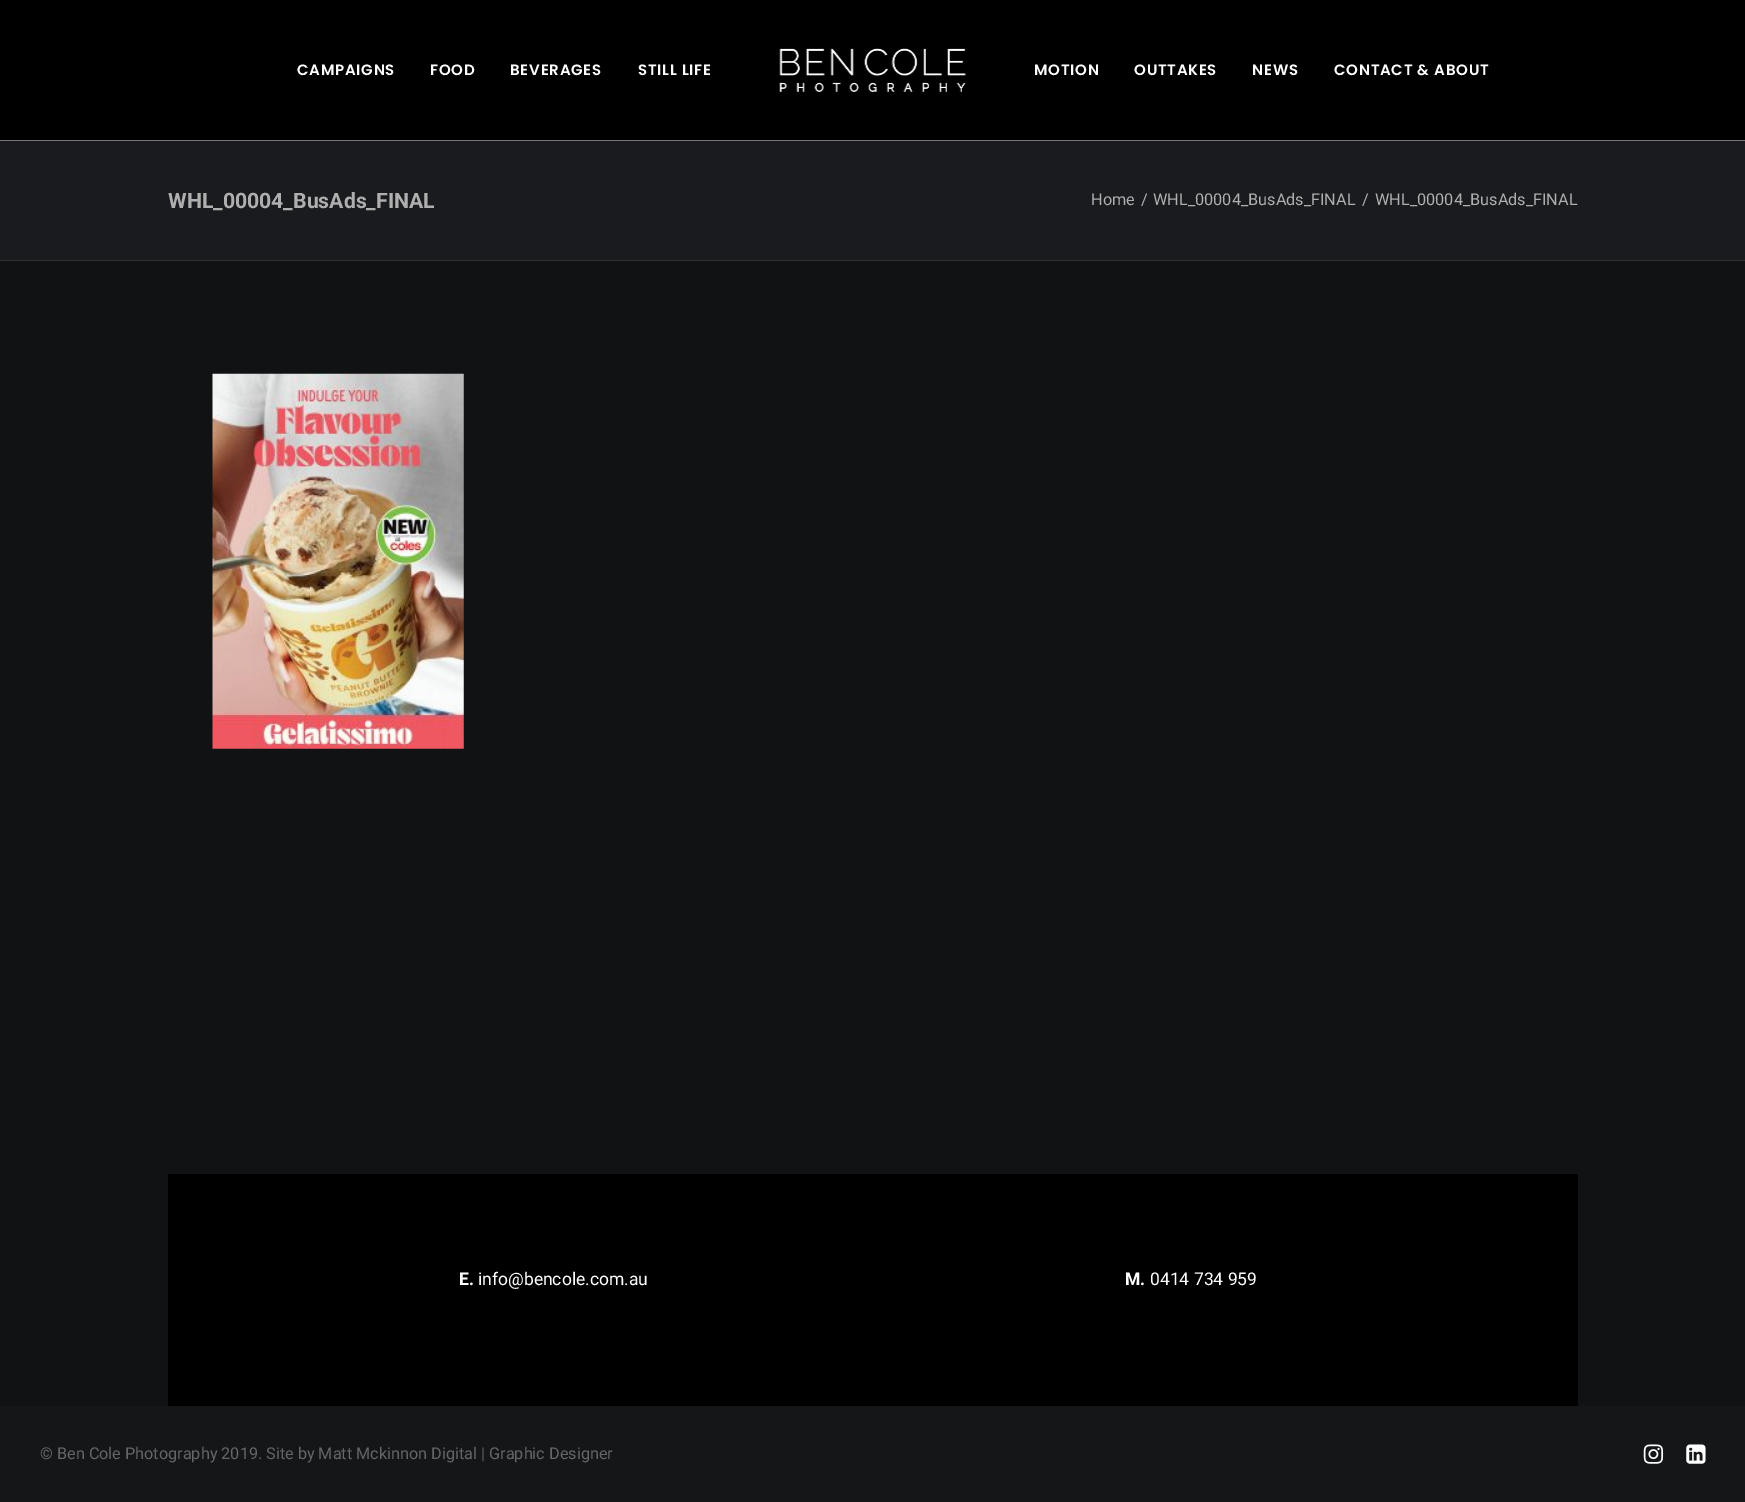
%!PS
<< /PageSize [1745 1502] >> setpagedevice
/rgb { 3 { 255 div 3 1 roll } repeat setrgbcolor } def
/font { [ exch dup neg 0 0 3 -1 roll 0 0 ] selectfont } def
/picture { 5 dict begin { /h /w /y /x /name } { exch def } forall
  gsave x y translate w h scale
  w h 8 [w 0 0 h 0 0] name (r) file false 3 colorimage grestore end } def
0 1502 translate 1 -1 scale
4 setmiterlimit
16 18 19 rgb
0 0 1745 1502 rectfill
0 0 0 rgb
0 0 1745 140 rectfill
117 117 117 rgb
0 140 1745 1 rectfill
(img/1.rgb) 779 48 187 44 picture
25 27 30 rgb
0 141 1745 119 rectfill
48 49 51 rgb
0 260 1745 1 rectfill
(img/2.rgb) 212 373 252 376 picture
0 0 0 rgb
168 1174 1410 232 rectfill
20 22 24 rgb
0 1406 1745 96 rectfill
(img/3.rgb) 1643 1444 21 20 picture
(img/4.rgb) 1686 1444 20 20 picture
/Poppins-SemiBold 15 font
255 255 255 rgb
297 75 moveto 0.75 0 (CAMPAIGNS) ashow
430 75 moveto 0.75 0 (FOOD) ashow
510 75 moveto 0.75 0 (BEVERAGES) ashow
638 75 moveto 0.75 0 (STILL LIFE) ashow
1034 75 moveto 0.75 0 (MOTION) ashow
1134 75 moveto 0.75 0 (OUTTAKES) ashow
1252 75 moveto 0.75 0 (NEWS) ashow
1334 75 moveto 0.75 0 (CONTACT & ABOUT) ashow
/Roboto-Bold 21.25 font
175 175 176 rgb
168 208 moveto (WHL_00004_BusAds_FINAL) show
/Roboto-Regular 16.25 font
[
  [(Home) 1091 205]
  [(/) 1141 205]
  [(WHL_00004_BusAds_FINAL) 1153 205]
  [(/) 1362 205]
  [(WHL_00004_BusAds_FINAL) 1375 205]
] { aload pop moveto show } forall
/Roboto-Bold 17.5 font
255 255 255 rgb
459 1285 moveto (E.) show
/Roboto-Regular 17.5 font
478 1285 moveto (info@bencole.com.au) show
/Roboto-Bold 17.5 font
1125 1285 moveto (M.) show
/Roboto-Regular 17.5 font
1150 1285 moveto (0414 734 959) show
/Roboto-Regular 16.25 font
102 102 102 rgb
40 1459 moveto (© Ben Cole Photography 2019. Site by Matt Mckinnon Digital | Graphic Designer) show
showpage
